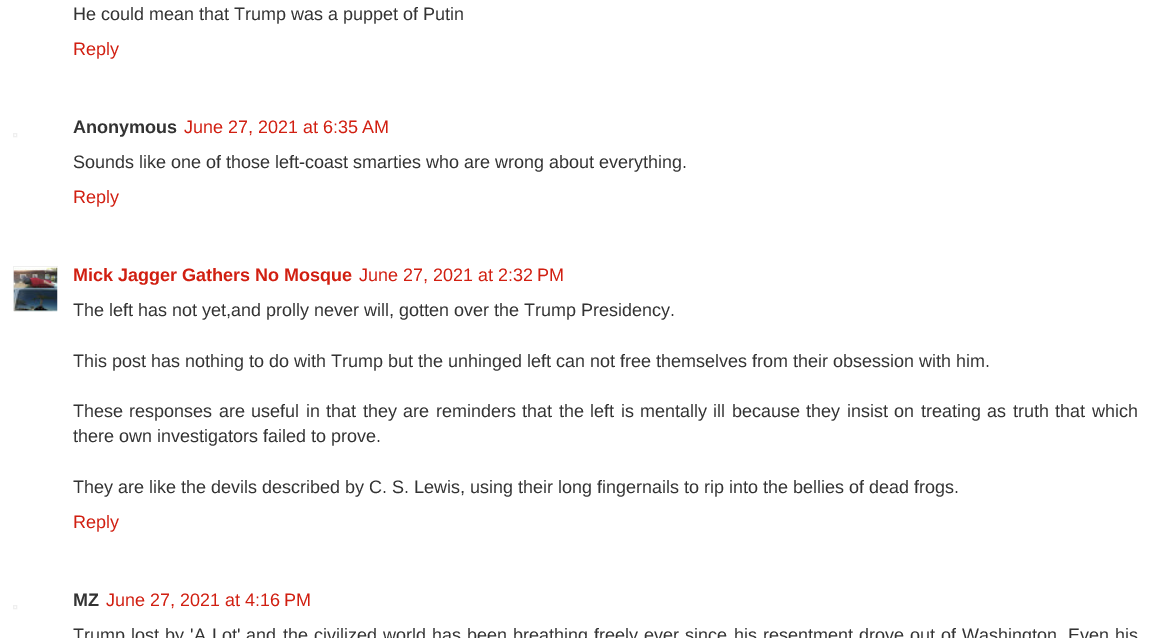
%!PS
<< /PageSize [1150 638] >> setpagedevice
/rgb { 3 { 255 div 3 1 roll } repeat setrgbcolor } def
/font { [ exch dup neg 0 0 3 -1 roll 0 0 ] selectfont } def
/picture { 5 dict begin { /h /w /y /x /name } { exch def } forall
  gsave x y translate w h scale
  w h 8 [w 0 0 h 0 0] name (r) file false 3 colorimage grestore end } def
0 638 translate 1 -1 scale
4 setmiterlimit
255 255 255 rgb
0 0 1150 638 rectfill
239 239 239 rgb
13.5 133.5 3 3 rectstroke
gsave
13 266 45 45 rectclip
13.5 266.5 45 46 rectstroke
grestore
(img/1.rgb) 13 267 45 45 picture
13.5 605.5 3 3 rectstroke
/LiberationSans-Regular 18 font
51 51 51 rgb
73 20 moveto (He could mean that Trump was a puppet of Putin) show
209 31 17 rgb
73 55 moveto (Reply) show
/LiberationSans-Bold 18 font
51 51 51 rgb
73 133 moveto (Anonymous) show
/LiberationSans-Regular 18 font
209 31 17 rgb
184 133 moveto (June 27, 2021 at 6:35 AM) show
51 51 51 rgb
73 168 moveto (Sounds like one of those left-coast smarties who are wrong about everything.) show
209 31 17 rgb
73 203 moveto (Reply) show
/LiberationSans-Bold 18 font
73 281 moveto (Mick Jagger Gathers No Mosque) show
/LiberationSans-Regular 18 font
359 281 moveto (June 27, 2021 at 2:32 PM) show
51 51 51 rgb
73 316 moveto (The left has not yet,and prolly never will, gotten over the Trump Presidency.) show
73 367 moveto (This post has nothing to do with Trump but the unhinged left can not free themselves from their obsession with him.) show
73 417 moveto 1.45 0 32 (These responses are useful in that they are reminders that the left is mentally ill because they insist on treating as truth that which) widthshow
73 442 moveto (there own investigators failed to prove.) show
73 493 moveto (They are like the devils described by C. S. Lewis, using their long fingernails to rip into the bellies of dead frogs.) show
209 31 17 rgb
73 528 moveto (Reply) show
/LiberationSans-Bold 18 font
51 51 51 rgb
73 606 moveto (MZ) show
/LiberationSans-Regular 18 font
209 31 17 rgb
106 606 moveto (June 27, 2021 at 4:16 PM) show
51 51 51 rgb
73 641 moveto 1.1 0 32 (Trump lost by 'A Lot' and the civilized world has been breathing freely ever since his resentment drove out of Washington. Even his) widthshow
showpage
